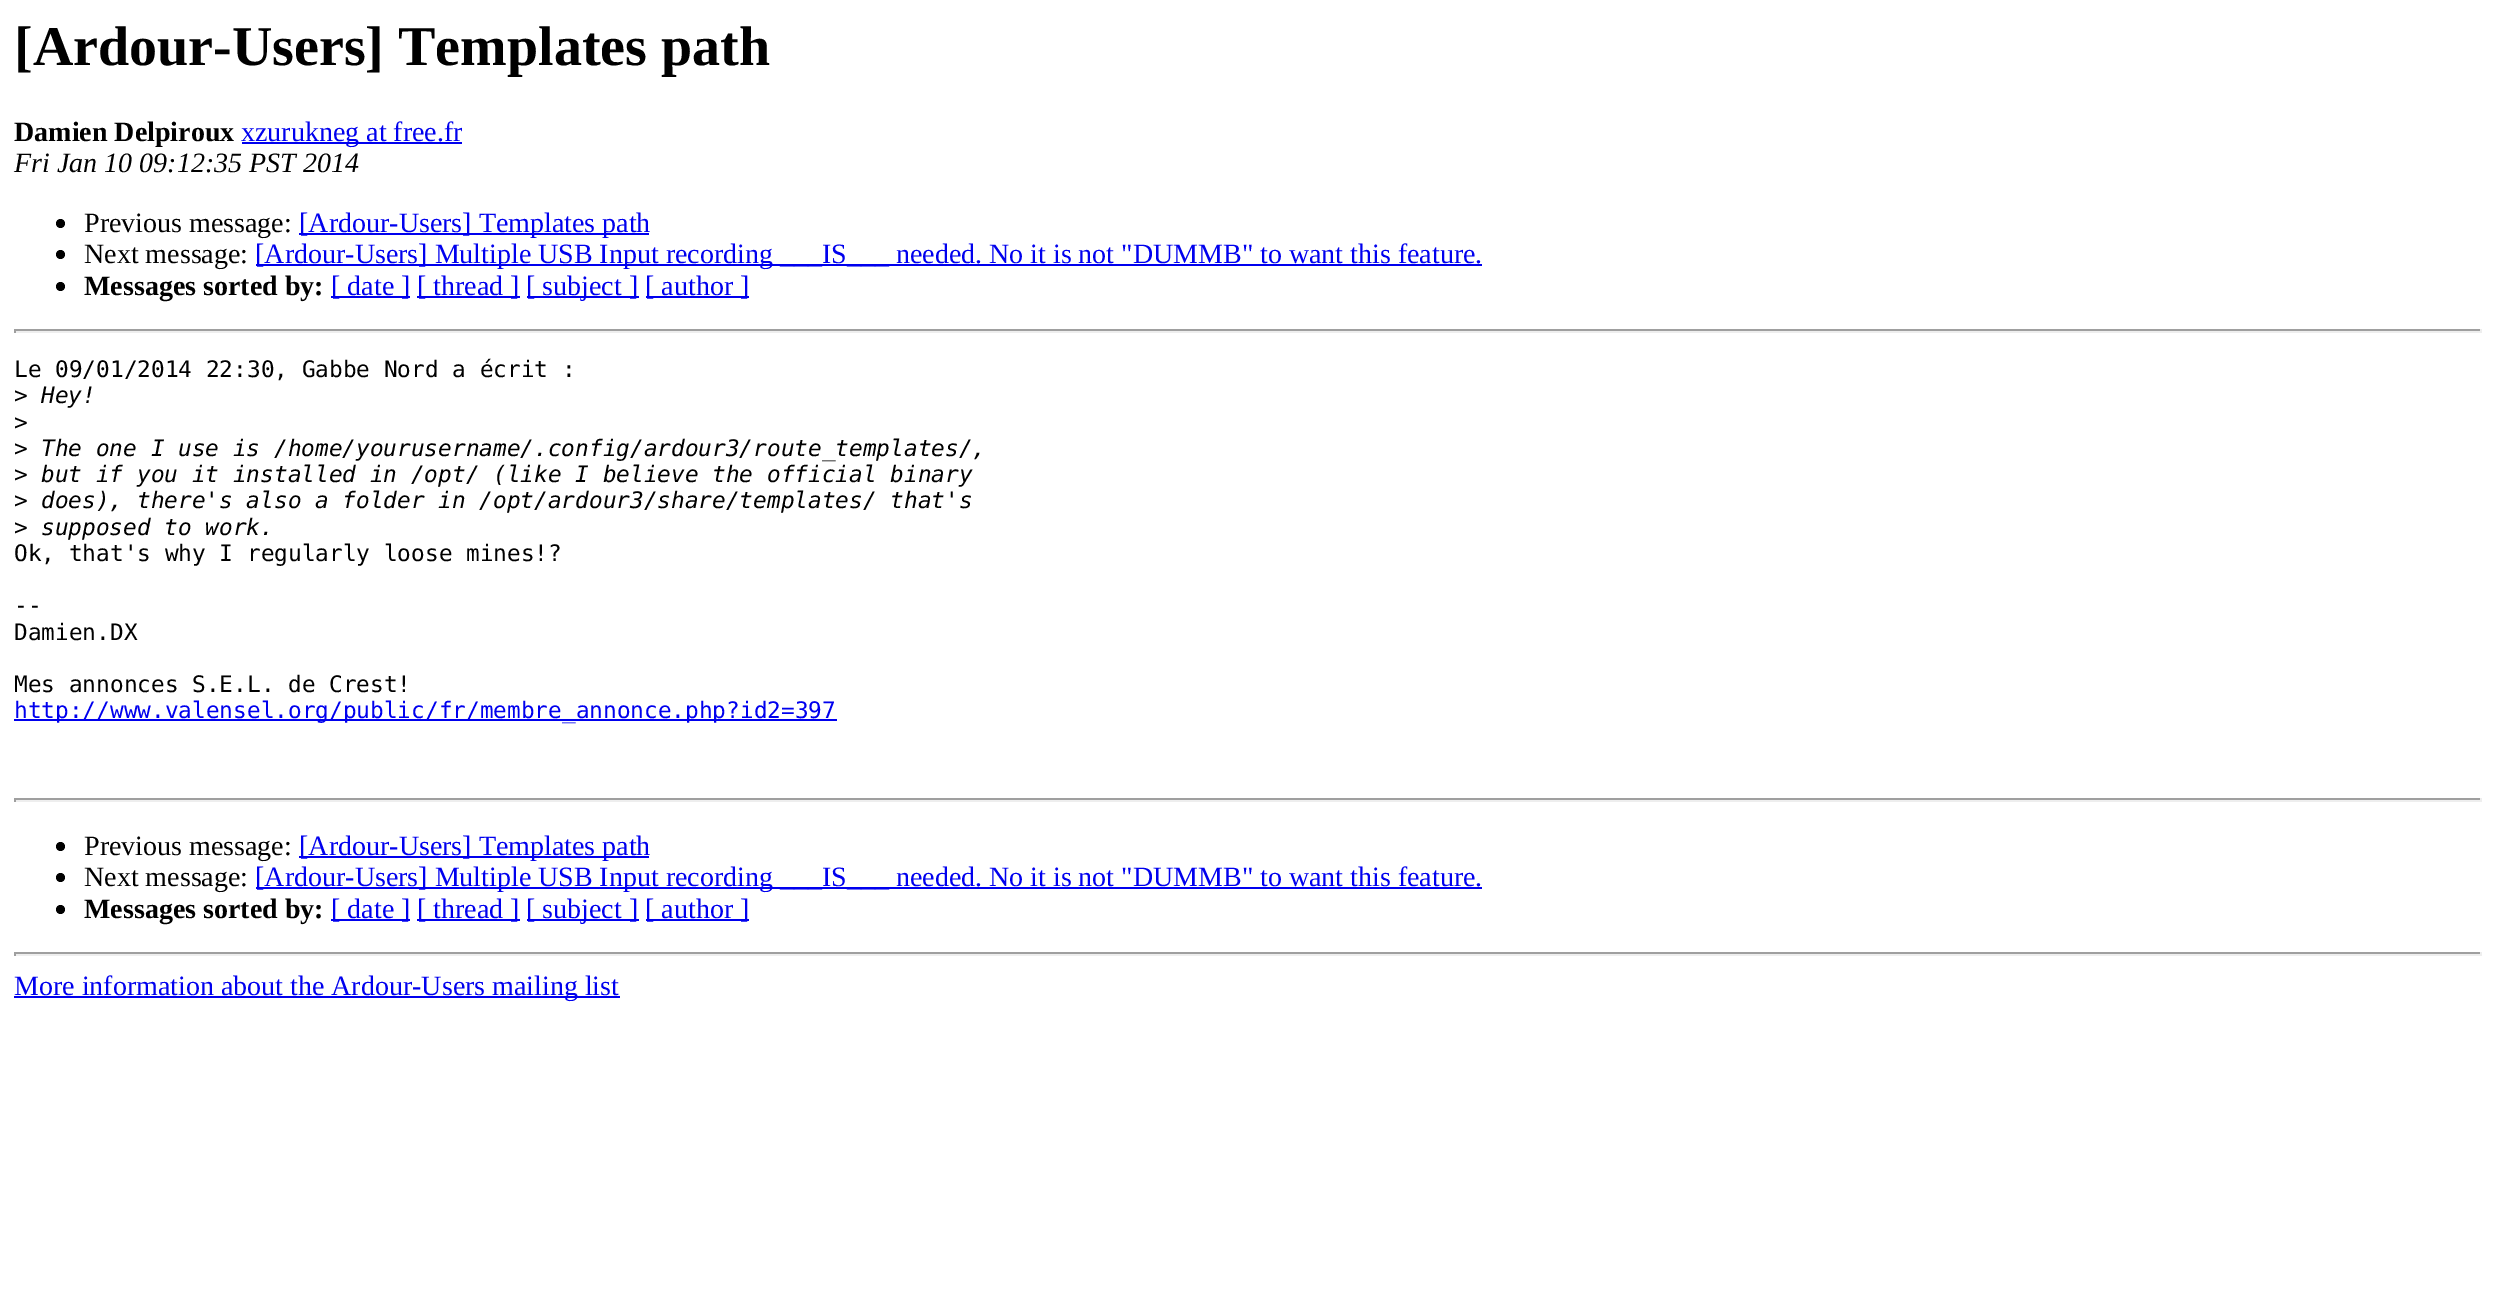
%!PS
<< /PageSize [2494 1309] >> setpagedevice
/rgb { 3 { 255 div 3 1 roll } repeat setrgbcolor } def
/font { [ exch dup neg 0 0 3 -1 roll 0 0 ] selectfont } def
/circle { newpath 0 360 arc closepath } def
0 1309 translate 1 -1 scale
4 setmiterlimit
255 255 255 rgb
0 0 2494 1309 rectfill
0 0 238 rgb
242 142 220 2 rectfill
0 0 0 rgb
60.5 223.5 4.5 circle fill
0 0 238 rgb
299 233 350 2 rectfill
0 0 0 rgb
60.5 254.5 4.5 circle fill
0 0 238 rgb
256 264 1226 2 rectfill
0 0 0 rgb
60.5 286.5 4.5 circle fill
[
  [331 296 79 2 0 0 238]
  [417 296 103 2 0 0 238]
  [527 296 112 2 0 0 238]
  [646 296 103 2 0 0 238]
  [14 329 2468 2 159 159 159]
  [2480 329 2 4 238 238 238]
  [14 331 2468 2 238 238 238]
  [14 329 2 4 159 159 159]
  [14 719 823 2 0 0 238]
  [14 798 2468 2 159 159 159]
  [2480 798 2 4 238 238 238]
  [14 800 2468 2 238 238 238]
  [14 798 2 4 159 159 159]
] { aload pop rgb rectfill } forall
0 0 0 rgb
60.5 846.5 4.5 circle fill
0 0 238 rgb
299 856 350 2 rectfill
0 0 0 rgb
60.5 877.5 4.5 circle fill
0 0 238 rgb
256 887 1226 2 rectfill
0 0 0 rgb
60.5 909.5 4.5 circle fill
[
  [331 919 79 2 0 0 238]
  [417 919 103 2 0 0 238]
  [527 919 112 2 0 0 238]
  [646 919 103 2 0 0 238]
  [14 952 2468 2 159 159 159]
  [2480 952 2 4 238 238 238]
  [14 954 2468 2 238 238 238]
  [14 952 2 4 159 159 159]
  [14 996 606 2 0 0 238]
] { aload pop rgb rectfill } forall
/LiberationSerif-Bold 56 font
0 0 0 rgb
14 65 moveto ([Ardour-Users] Templates path) show
/LiberationSerif-Bold 28 font
14 141 moveto (Damien Delpiroux) show
/LiberationSerif-Regular 28 font
0 0 238 rgb
241 141 moveto (xzurukneg at free.fr) show
/LiberationSerif-Italic 28 font
0 0 0 rgb
14 172 moveto (Fri Jan 10 09:12:35 PST 2014) show
/LiberationSerif-Regular 28 font
84 232 moveto (Previous message:) show
0 0 238 rgb
299 232 moveto ([Ardour-Users] Templates path) show
0 0 0 rgb
84 263 moveto (Next message:) show
0 0 238 rgb
255 263 moveto ([Ardour-Users] Multiple USB Input recording ___IS___ needed. No it is not "DUMMB" to want this feature.) show
/LiberationSerif-Bold 28 font
0 0 0 rgb
84 295 moveto (Messages sorted by:) show
/LiberationSerif-Regular 28 font
0 0 238 rgb
[
  [([ date ]) 331 295]
  [([ thread ]) 417 295]
  [([ subject ]) 526 295]
  [([ author ]) 645 295]
] { aload pop moveto show } forall
/DejaVuSansMono-Regular 22.75 font
0 0 0 rgb
14 377 moveto (Le 09/01/2014 22:30, Gabbe Nord a écrit :) show
14 403 moveto (>) show
/DejaVuSansMono-Italic 22.75 font
41 403 moveto (Hey!) show
/DejaVuSansMono-Regular 22.75 font
14 430 moveto (>) show
14 456 moveto (>) show
/DejaVuSansMono-Italic 22.75 font
41 456 moveto (The one I use is /home/yourusername/.config/ardour3/route_templates/,) show
/DejaVuSansMono-Regular 22.75 font
14 482 moveto (>) show
/DejaVuSansMono-Italic 22.75 font
41 482 moveto (but if you it installed in /opt/ \(like I believe the official binary) show
/DejaVuSansMono-Regular 22.75 font
14 508 moveto (>) show
/DejaVuSansMono-Italic 22.75 font
41 508 moveto (does\), there's also a folder in /opt/ardour3/share/templates/ that's) show
/DejaVuSansMono-Regular 22.75 font
14 535 moveto (>) show
/DejaVuSansMono-Italic 22.75 font
41 535 moveto (supposed to work.) show
/DejaVuSansMono-Regular 22.75 font
[
  [(Ok, that's why I regularly loose mines!?) 14 561]
  [(--) 14 613]
  [(Damien.DX) 14 640]
  [(Mes annonces S.E.L. de Crest!) 14 692]
] { aload pop moveto show } forall
0 0 238 rgb
14 718 moveto (http://www.valensel.org/public/fr/membre_annonce.php?id2=397) show
/LiberationSerif-Regular 28 font
0 0 0 rgb
84 855 moveto (Previous message:) show
0 0 238 rgb
299 855 moveto ([Ardour-Users] Templates path) show
0 0 0 rgb
84 886 moveto (Next message:) show
0 0 238 rgb
255 886 moveto ([Ardour-Users] Multiple USB Input recording ___IS___ needed. No it is not "DUMMB" to want this feature.) show
/LiberationSerif-Bold 28 font
0 0 0 rgb
84 918 moveto (Messages sorted by:) show
/LiberationSerif-Regular 28 font
0 0 238 rgb
[
  [([ date ]) 331 918]
  [([ thread ]) 417 918]
  [([ subject ]) 526 918]
  [([ author ]) 645 918]
  [(More information about the Ardour-Users mailing list) 14 995]
] { aload pop moveto show } forall
showpage
